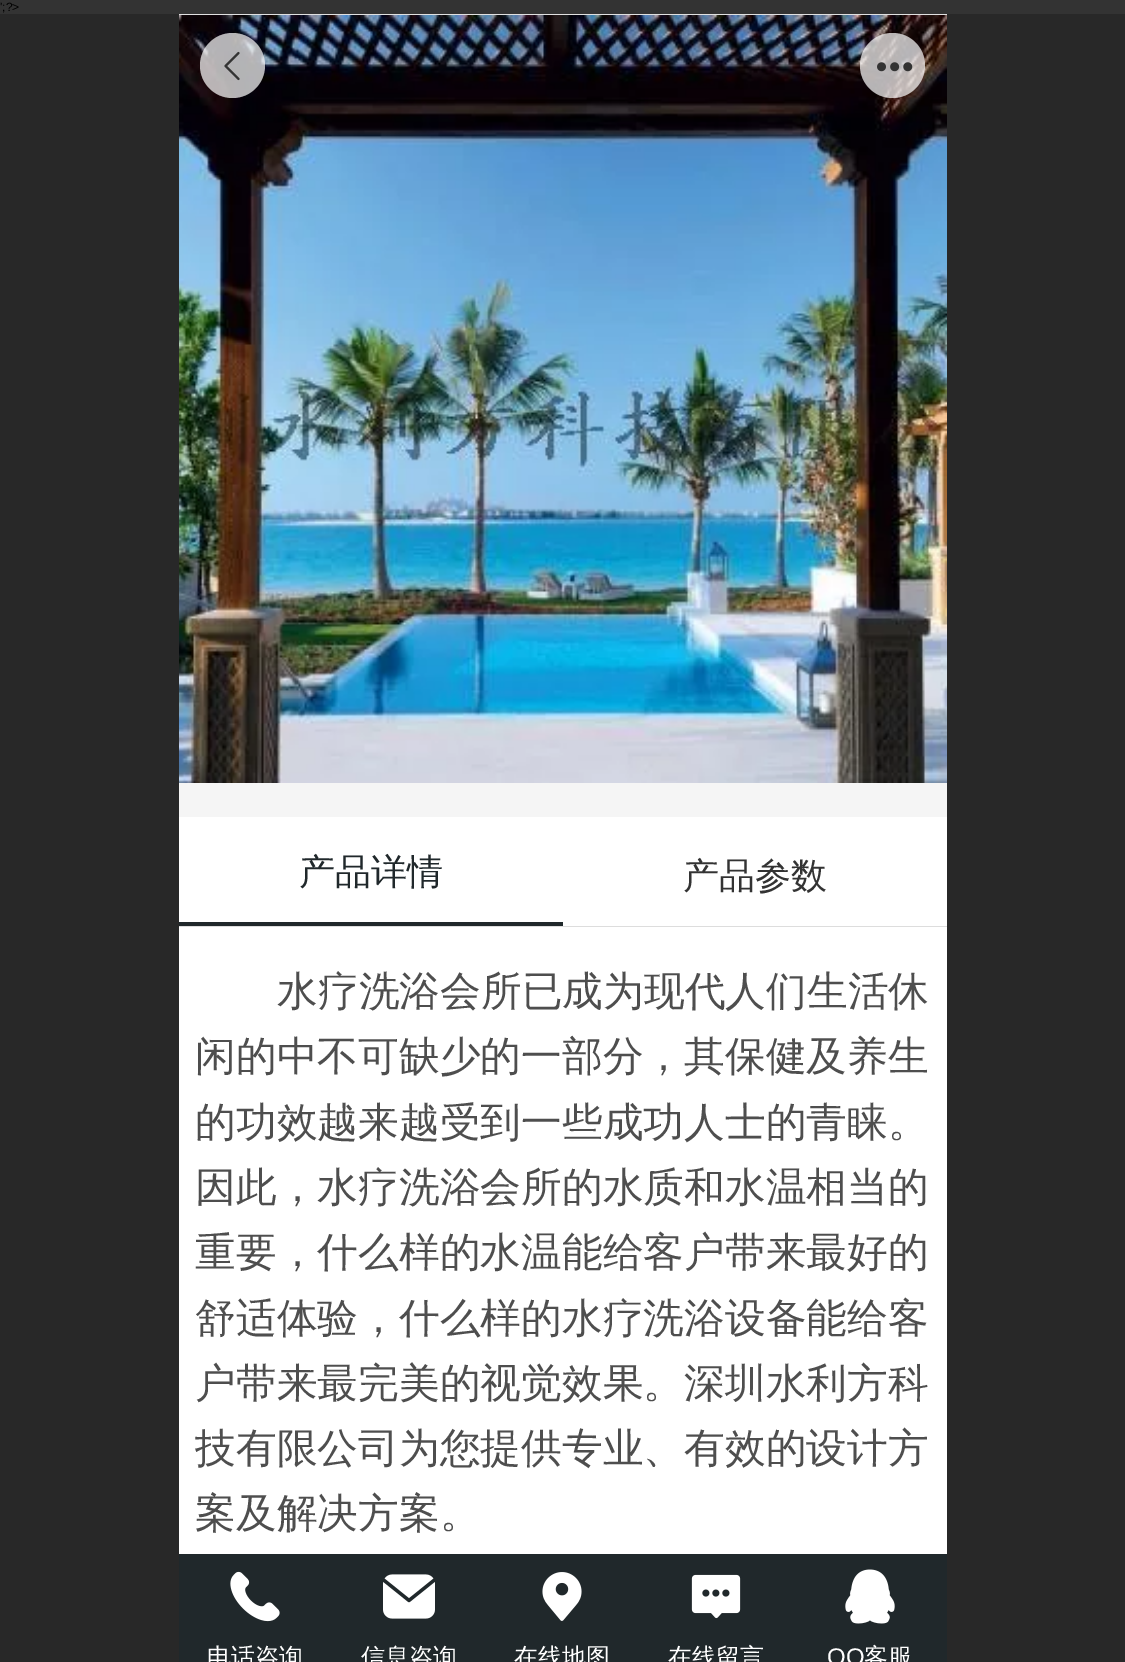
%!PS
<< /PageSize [1125 1662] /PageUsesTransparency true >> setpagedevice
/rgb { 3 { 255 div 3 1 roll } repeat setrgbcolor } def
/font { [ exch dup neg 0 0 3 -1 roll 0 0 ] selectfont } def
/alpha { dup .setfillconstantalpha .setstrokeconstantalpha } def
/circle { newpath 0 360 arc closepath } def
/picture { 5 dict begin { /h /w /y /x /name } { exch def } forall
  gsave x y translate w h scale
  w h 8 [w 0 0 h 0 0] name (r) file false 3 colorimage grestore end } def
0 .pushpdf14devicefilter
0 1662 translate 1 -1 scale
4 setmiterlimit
51 51 51 rgb
0 0 1125 1662 rectfill
[
  [179 817 768 737 255 255 255]
  [0 14 179 1648 40 40 40]
  [179 14 768 1 225 225 225]
] { aload pop rgb rectfill } forall
(img/3.rgb) 179 15 768 768 picture
0.7 alpha
255 255 255 rgb
232.5 65.5 32.5 circle fill
1 alpha
(img/1.rgb) 224 51 16 30 picture
0.7 alpha
892.5 65.5 32.5 circle fill
1 alpha
(img/2.rgb) 877 62 36 10 picture
[
  [179 783 768 34 245 245 245]
  [179 926 768 1 221 221 221]
  [179 922 384 4 32 40 43]
  [179 1554 768 108 32 40 43]
] { aload pop rgb rectfill } forall
(img/4.rgb) 230 1571 50 51 picture
(img/5.rgb) 383 1574 52 45 picture
(img/6.rgb) 542 1572 40 49 picture
(img/7.rgb) 691 1574 50 45 picture
(img/8.rgb) 845 1569 50 55 picture
40 40 40 rgb
947 14 178 1648 rectfill
/LiberationSans-Regular 12 font
0 0 0 rgb
0 11 moveto (';?>) show
/WenQuanYiZenHei-Medium 36 font
32 40 43 rgb
299 884 moveto (产品详情) show
51 51 51 rgb
683 888 moveto (产品参数) show
/WenQuanYiZenHei-Medium 40.75 font
78 78 78 rgb
[
  [(水疗洗浴会所已成为现代人们生活休) 277 1005]
  [(闲的中不可缺少的一部分，其保健及养生) 195 1070]
  [(的功效越来越受到一些成功人士的青睐。) 195 1136]
  [(因此，水疗洗浴会所的水质和水温相当的) 195 1201]
  [(重要，什么样的水温能给客户带来最好的) 195 1266]
  [(舒适体验，什么样的水疗洗浴设备能给客) 195 1332]
  [(户带来最完美的视觉效果。深圳水利方科) 195 1397]
  [(技有限公司为您提供专业、有效的设计方) 195 1462]
  [(案及解决方案。) 195 1527]
] { aload pop moveto show } forall
/WenQuanYiZenHei-Medium 24 font
255 255 255 rgb
[
  [(电话咨询) 207 1665]
  [(信息咨询) 361 1665]
  [(在线地图) 514 1665]
  [(在线留言) 668 1665]
] { aload pop moveto show } forall
/LiberationSans-Regular 24 font
827 1665 moveto (QQ) show
/WenQuanYiZenHei-Medium 24 font
864 1665 moveto (客服) show
.poppdf14devicefilter showpage
